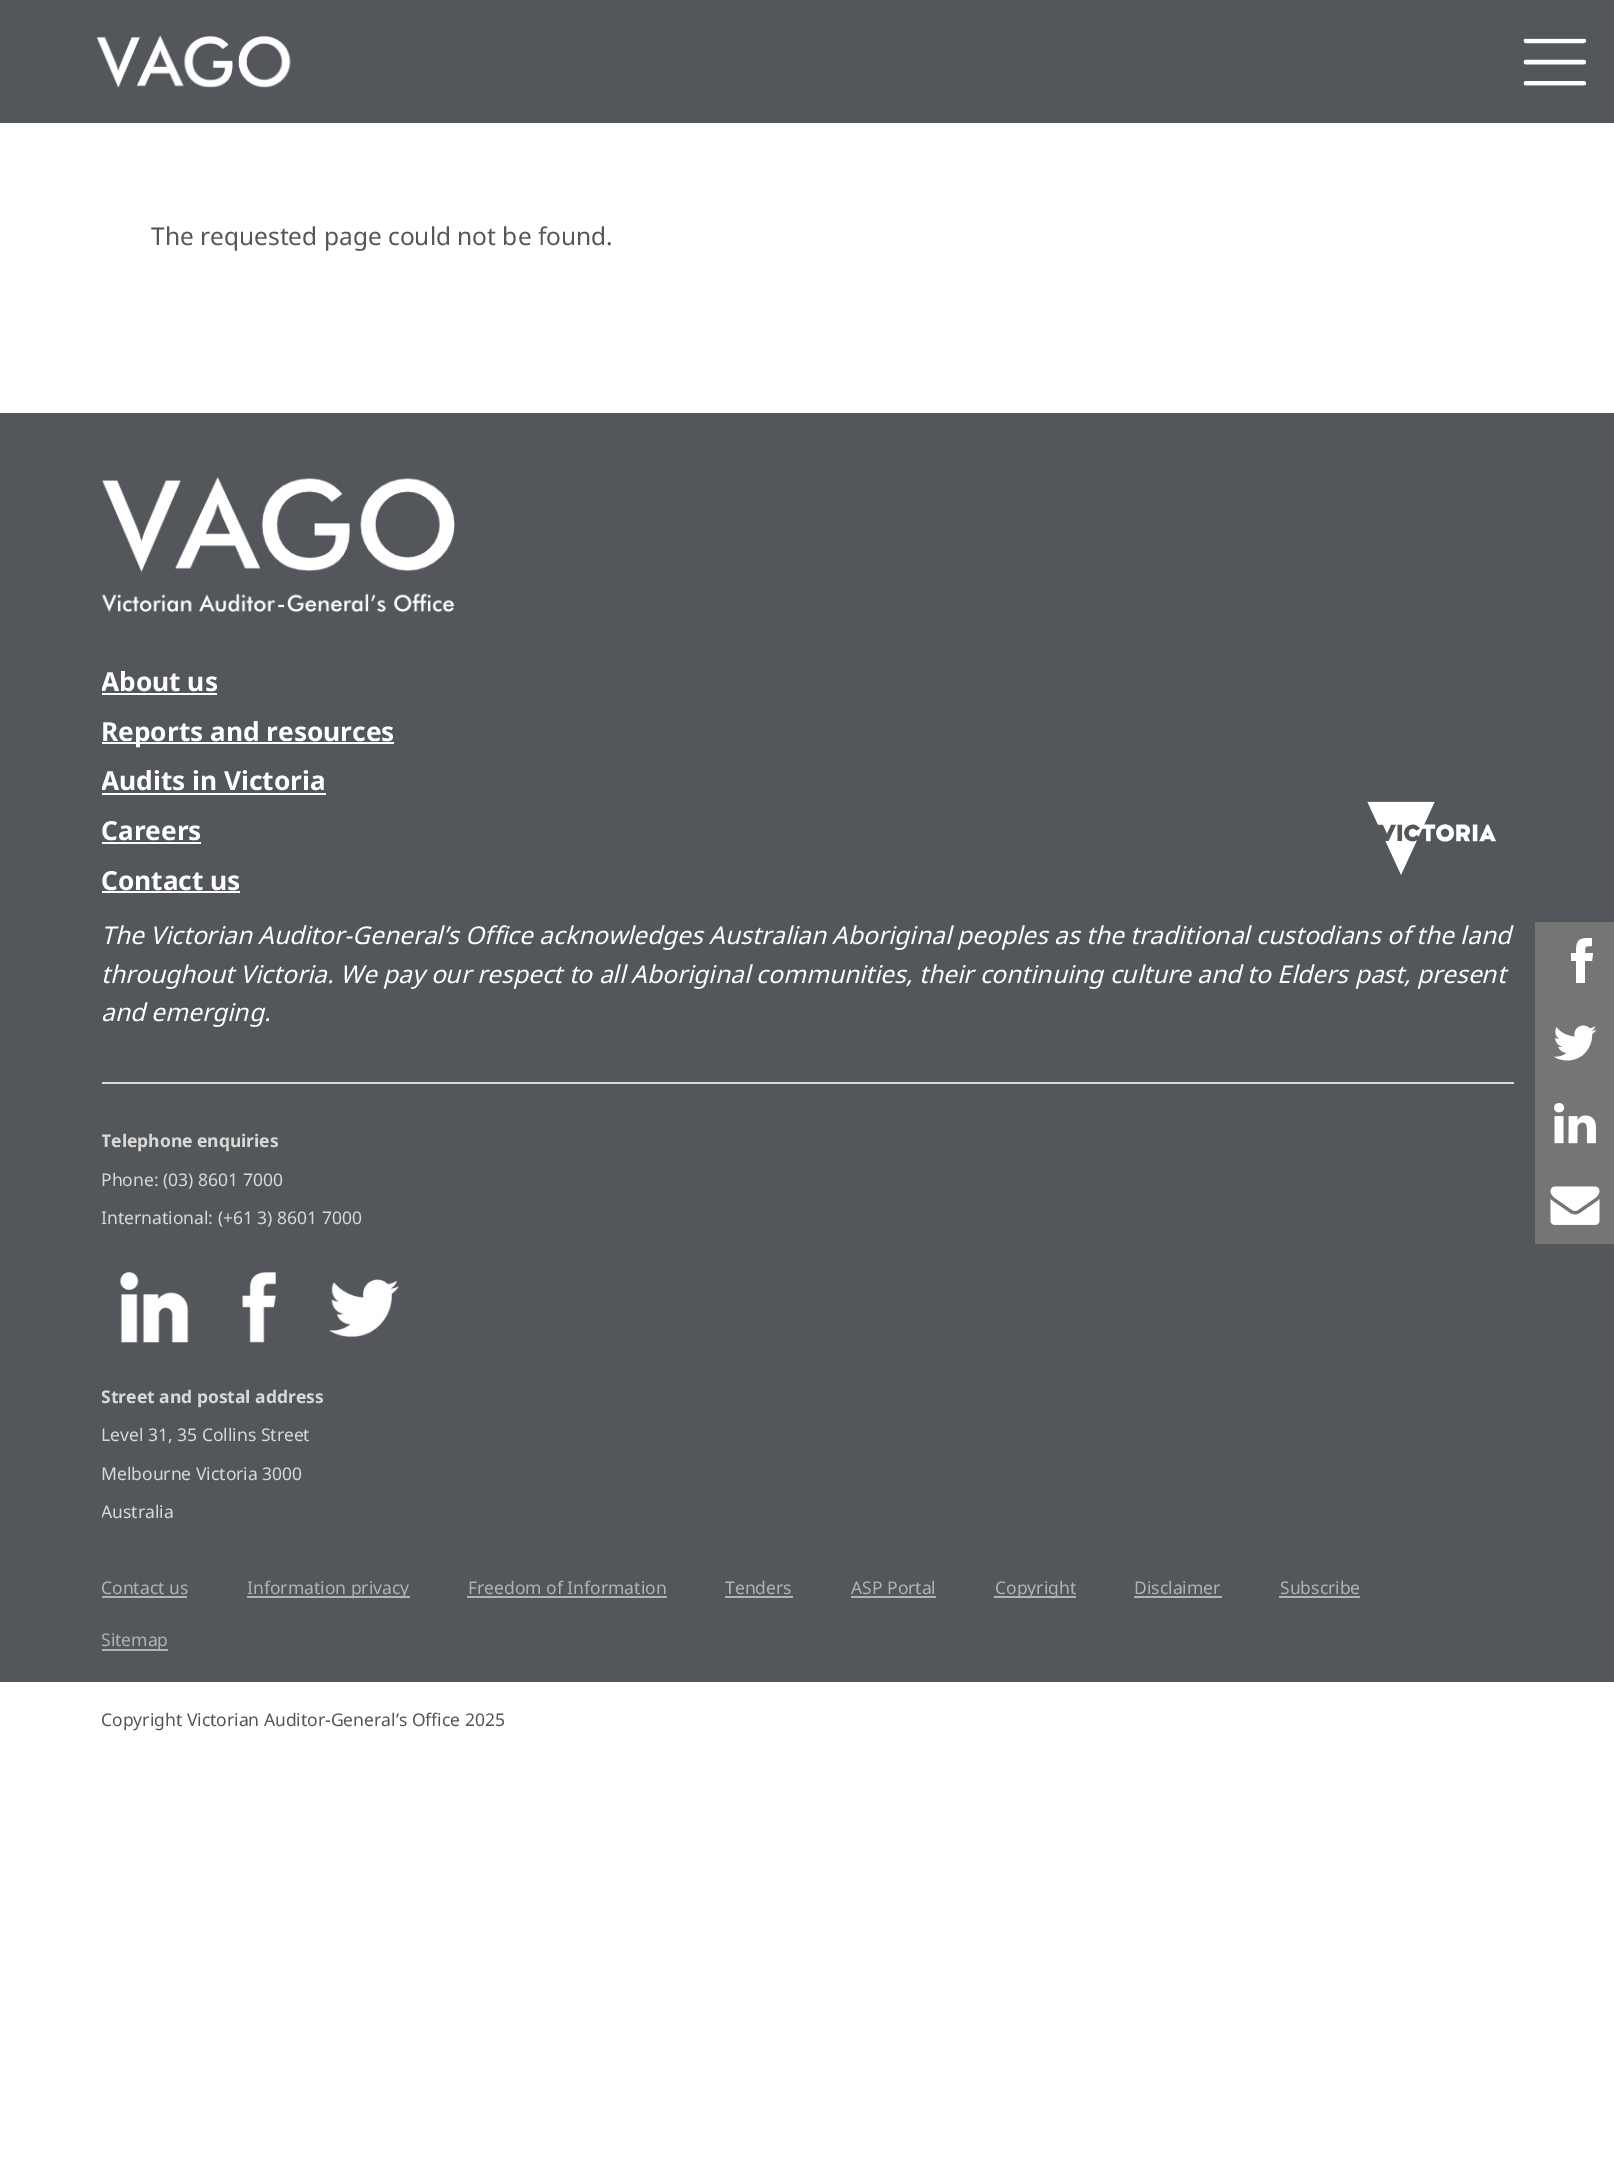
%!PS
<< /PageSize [1614 2164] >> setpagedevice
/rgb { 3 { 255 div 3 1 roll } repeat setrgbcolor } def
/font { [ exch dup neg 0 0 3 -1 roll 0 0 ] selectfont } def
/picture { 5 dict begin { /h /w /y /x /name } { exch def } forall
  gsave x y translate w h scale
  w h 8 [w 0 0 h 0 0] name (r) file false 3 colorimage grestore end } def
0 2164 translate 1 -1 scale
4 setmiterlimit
255 255 255 rgb
0 0 1614 2164 rectfill
83 86 90 rgb
0 0 1614 123 rectfill
(img/1.rgb) 96 35 195 53 picture
(img/2.rgb) 1523 38 64 48 picture
0 413 1614 1269 rectfill
(img/3.rgb) 101 477 354 135 picture
[
  [102 693 115 2 255 255 255]
  [102 742 292 2 255 255 255]
  [102 793 224 2 255 255 255]
  [102 842 99 2 255 255 255]
  [102 891 138 2 255 255 255]
] { aload pop rgb rectfill } forall
(img/4.rgb) 1367 801 129 74 picture
217 217 214 rgb
102 1082 1412 2 rectfill
(img/5.rgb) 119 1271 70 72 picture
(img/6.rgb) 242 1272 35 71 picture
(img/7.rgb) 329 1279 70 58 picture
[
  [102 1596 85 2 177 178 177]
  [247 1596 163 2 177 178 177]
  [467 1596 200 2 177 178 177]
  [725 1596 68 2 177 178 177]
  [851 1596 85 2 177 178 177]
  [994 1596 82 2 177 178 177]
  [1134 1596 88 2 177 178 177]
  [1279 1596 81 2 177 178 177]
  [102 1649 66 2 177 178 177]
  [1535 922 79 322 117 117 117]
] { aload pop rgb rectfill } forall
255 255 255 rgb
1585 953 moveto 1585 946 1585 946 1592 946 curveto 1592 938 lineto 1579 938 1576 939 1576 953 curveto 1571 953 lineto 1571 961 lineto 1576 961 lineto 1576 983 lineto 1585 983 lineto 1585 961 lineto 1592 961 lineto 1593 953 lineto closepath fill
(img/8.rgb) 1553 1025 44 36 picture
(img/9.rgb) 1554 1103 42 41 picture
(img/10.rgb) 1550 1186 50 39 picture
/NotoSans-Regular 24.5 font
83 86 90 rgb
151 245 moveto (The requested page could not be found.) show
gsave
102 663 871 235 rectclip
/NotoSans-Bold 26.25 font
255 255 255 rgb
101 691 moveto (About us) show
grestore
/NotoSans-Bold 26.25 font
255 255 255 rgb
101 741 moveto (Reports and resources) show
gsave
102 663 871 235 rectclip
101 790 moveto (Audits in Victoria) show
grestore
101 840 moveto (Careers) show
101 890 moveto (Contact us) show
/NotoSans-Italic 24.5 font
[
  [(The Victorian Auditor-General’s Office acknowledges Australian Aboriginal peoples as the traditional custodians of the land) 101 944]
  [(throughout Victoria. We pay our respect to all Aboriginal communities, their continuing culture and to Elders past, present) 101 983]
  [(and emerging.) 101 1021]
] { aload pop moveto show } forall
gsave
102 1083 1412 448 rectclip
/NotoSans-Bold 17.5 font
217 217 214 rgb
101 1147 moveto (Telephone enquiries) show
grestore
/NotoSans-Regular 17.5 font
217 217 214 rgb
101 1186 moveto (Phone: \(03\) 8601 7000) show
gsave
102 1083 1412 448 rectclip
101 1224 moveto (International: \(+61 3\) 8601 7000) show
/NotoSans-Bold 17.5 font
101 1403 moveto (Street and postal address) show
grestore
101 1441 moveto (Level 31, 35 Collins Street) show
101 1480 moveto (Melbourne Victoria 3000) show
gsave
102 1083 1412 448 rectclip
101 1518 moveto (Australia) show
grestore
177 178 177 rgb
[
  [(Contact us) 101 1594]
  [(Information privacy) 247 1594]
  [(Freedom of Information) 468 1594]
  [(Tenders) 725 1594]
  [(ASP Portal) 851 1594]
  [(Copyright) 995 1594]
  [(Disclaimer) 1134 1594]
  [(Subscribe) 1280 1594]
  [(Sitemap) 101 1646]
] { aload pop moveto show } forall
83 86 90 rgb
101 1726 moveto (Copyright Victorian Auditor-General’s Office 2025) show
showpage
